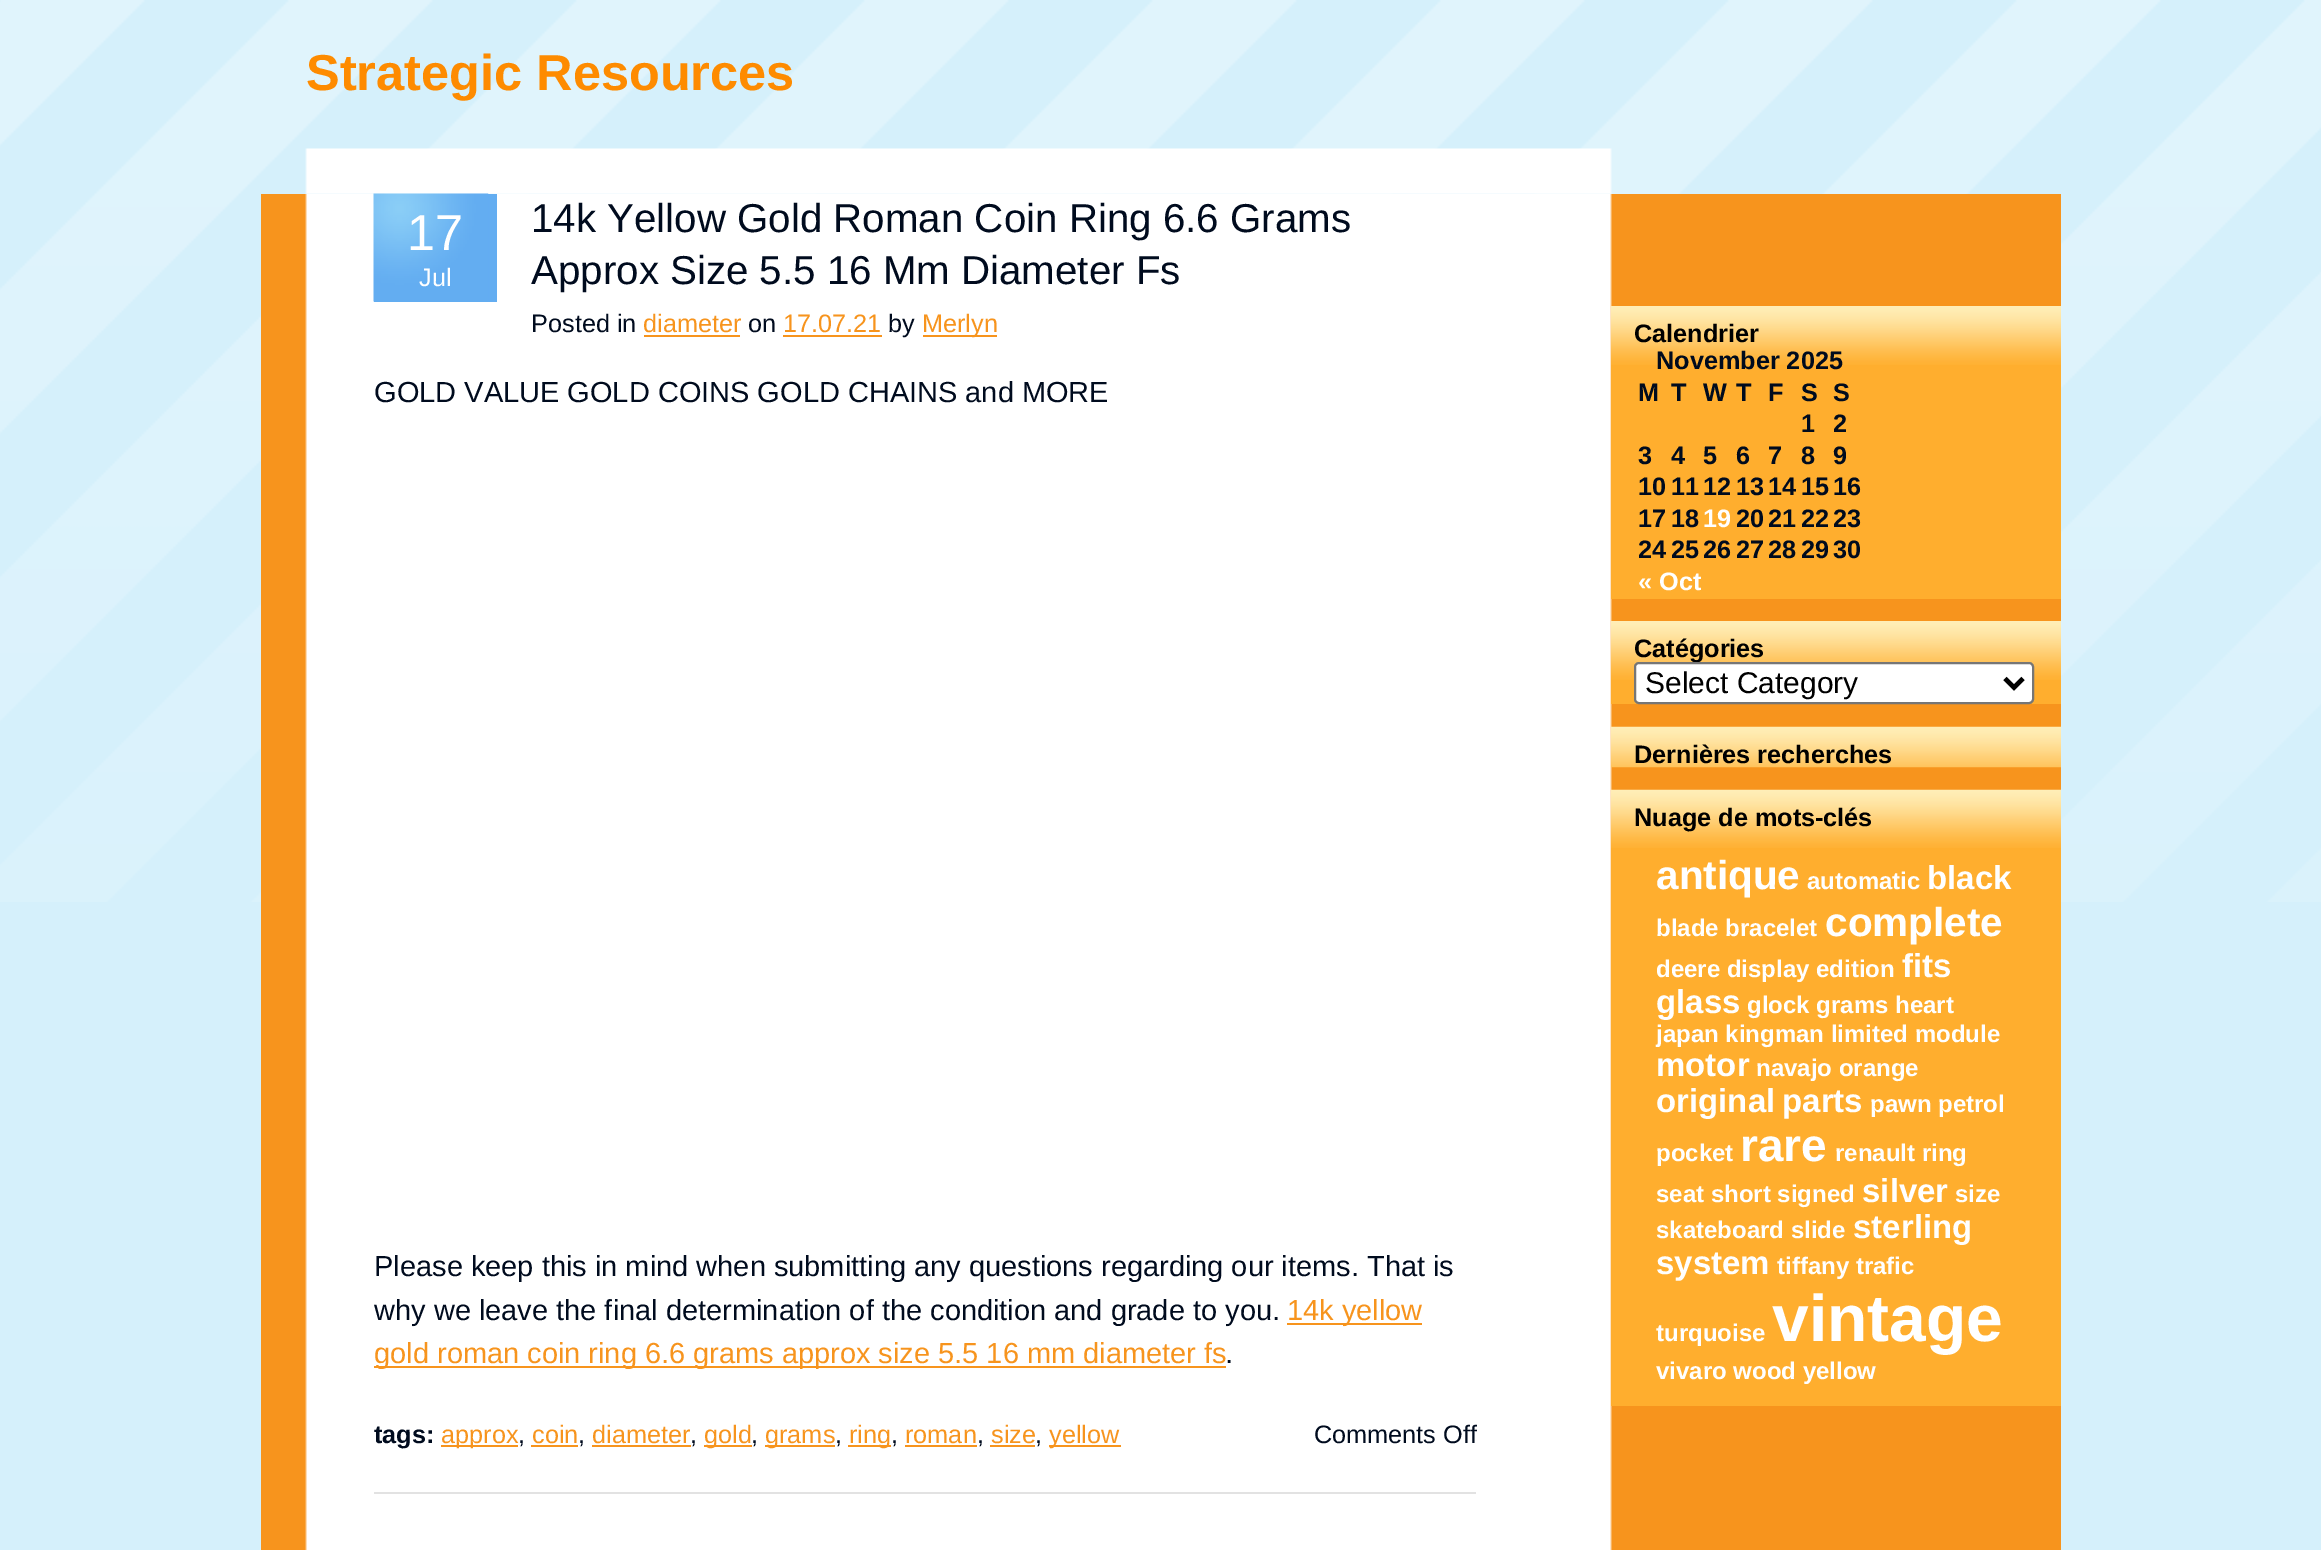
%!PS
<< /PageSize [2321 1550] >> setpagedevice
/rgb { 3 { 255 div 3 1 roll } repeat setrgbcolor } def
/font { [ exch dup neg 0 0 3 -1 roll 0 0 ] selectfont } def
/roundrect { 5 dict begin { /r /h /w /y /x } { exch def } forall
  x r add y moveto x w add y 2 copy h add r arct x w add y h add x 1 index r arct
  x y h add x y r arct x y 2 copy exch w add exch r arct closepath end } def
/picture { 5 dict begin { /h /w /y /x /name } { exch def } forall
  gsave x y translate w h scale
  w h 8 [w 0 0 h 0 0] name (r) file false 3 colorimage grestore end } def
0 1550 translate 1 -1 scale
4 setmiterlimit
213 240 251 rgb
0 0 2321 1550 rectfill
(img/1.rgb) 0 0 2321 902 picture
(img/2.rgb) 305 148 1307 46 picture
247 148 29 rgb
261 194 1800 1356 rectfill
(img/3.rgb) 305 193 1307 1357 picture
226 226 226 rgb
374 1492 1102 2 rectfill
99 173 241 rgb
374 194 123 108 rectfill
(img/4.rgb) 373 193 116 109 picture
[
  [644 335 96 2 247 148 29]
  [783 335 99 2 247 148 29]
  [923 335 74 2 247 148 29]
  [1287 1323 135 2 247 148 29]
  [374 1366 852 2 247 148 29]
  [441 1445 77 2 247 148 29]
  [531 1445 47 2 247 148 29]
  [592 1445 99 2 247 148 29]
  [704 1445 48 2 247 148 29]
  [765 1445 70 2 247 148 29]
  [848 1445 43 2 247 148 29]
  [905 1445 72 2 247 148 29]
  [990 1445 45 2 247 148 29]
  [1049 1445 72 2 247 148 29]
  [1611 365 450 234 255 174 46]
] { aload pop rgb rectfill } forall
(img/5.rgb) 1611 306 450 59 picture
1611 680 450 24 rectfill
(img/5.rgb) 1611 621 450 59 picture
(img/6.rgb) 1611 726 450 42 picture
1611 848 450 558 rectfill
(img/7.rgb) 1611 789 450 59 picture
/LiberationSans-Bold 50.5 font
254 139 0 rgb
306 90 moveto (Strategic Resources) show
/LiberationSans-Regular 50.5 font
255 255 255 rgb
407 250 moveto (17) show
/LiberationSans-Regular 25.25 font
419 286 moveto (Jul) show
/LiberationSans-Regular 40.3 font
0 11 30 rgb
531 232 moveto (14k Yellow Gold Roman Coin Ring 6.6 Grams) show
531 284 moveto (Approx Size 5.5 16 Mm Diameter Fs) show
/LiberationSans-Regular 25.25 font
531 332 moveto (Posted in) show
247 148 29 rgb
643 332 moveto (diameter) show
0 11 30 rgb
748 332 moveto (on) show
247 148 29 rgb
783 332 moveto (17.07.21) show
0 11 30 rgb
888 332 moveto (by) show
247 148 29 rgb
922 332 moveto (Merlyn) show
/LiberationSans-Regular 29 font
0 11 30 rgb
[
  [(GOLD VALUE GOLD COINS GOLD CHAINS and MORE) 374 402]
  [(Please keep this in mind when submitting any questions regarding our items. That is) 374 1276]
  [(why we leave the final determination of the condition and grade to you.) 374 1320]
] { aload pop moveto show } forall
247 148 29 rgb
1287 1320 moveto (14k yellow) show
374 1363 moveto (gold roman coin ring 6.6 grams approx size 5.5 16 mm diameter fs) show
0 11 30 rgb
1225 1363 moveto (.) show
/LiberationSans-Bold 25.25 font
374 1443 moveto (tags:) show
/LiberationSans-Regular 25.25 font
247 148 29 rgb
441 1443 moveto (approx) show
0 11 30 rgb
518 1443 moveto (,) show
247 148 29 rgb
532 1443 moveto (coin) show
0 11 30 rgb
578 1443 moveto (,) show
247 148 29 rgb
592 1443 moveto (diameter) show
0 11 30 rgb
690 1443 moveto (,) show
247 148 29 rgb
704 1443 moveto (gold) show
0 11 30 rgb
751 1443 moveto (,) show
247 148 29 rgb
765 1443 moveto (grams) show
0 11 30 rgb
835 1443 moveto (,) show
247 148 29 rgb
849 1443 moveto (ring) show
0 11 30 rgb
891 1443 moveto (,) show
247 148 29 rgb
905 1443 moveto (roman) show
0 11 30 rgb
977 1443 moveto (,) show
247 148 29 rgb
991 1443 moveto (size) show
0 11 30 rgb
1035 1443 moveto (,) show
247 148 29 rgb
1049 1443 moveto (yellow) show
0 11 30 rgb
1314 1443 moveto (Comments Off) show
/LiberationSans-Bold 25.25 font
0 0 0 rgb
1634 342 moveto (Calendrier) show
0 11 30 rgb
[
  [(November 2025) 1656 369]
  [(M) 1638 401]
  [(T) 1671 401]
  [(W) 1703 401]
  [(T) 1736 401]
  [(F) 1768 401]
  [(S) 1801 401]
  [(S) 1833 401]
  [(1) 1801 432]
  [(2) 1833 432]
  [(3) 1638 464]
  [(4) 1671 464]
  [(5) 1703 464]
  [(6) 1736 464]
  [(7) 1768 464]
  [(8) 1801 464]
  [(9) 1833 464]
  [(10) 1638 495]
  [(11) 1671 495]
  [(12) 1703 495]
  [(13) 1736 495]
  [(14) 1768 495]
  [(15) 1801 495]
  [(16) 1833 495]
  [(17) 1638 527]
  [(18) 1671 527]
] { aload pop moveto show } forall
255 255 255 rgb
1703 527 moveto (19) show
0 11 30 rgb
[
  [(20) 1736 527]
  [(21) 1768 527]
  [(22) 1801 527]
  [(23) 1833 527]
  [(24) 1638 558]
  [(25) 1671 558]
  [(26) 1703 558]
  [(27) 1736 558]
  [(28) 1768 558]
  [(29) 1801 558]
  [(30) 1833 558]
] { aload pop moveto show } forall
255 255 255 rgb
1638 590 moveto (« Oct) show
0 0 0 rgb
1634 657 moveto (Catégories) show
255 255 255 rgb
1635 663 398 40 4 roundrect gsave fill grestore
118 118 118 rgb
2 setlinewidth
stroke
0 0 0 rgb
4.5 setlinewidth
2005 678.5 moveto 2014 687.5 lineto 2023 678.5 lineto stroke
/LiberationSans-Regular 30 font
1645 693 moveto (Select Category) show
/LiberationSans-Bold 25.25 font
1634 763 moveto (Dernières recherches) show
1634 826 moveto (Nuage de mots-clés) show
/LiberationSans-Bold 40.5 font
255 255 255 rgb
1656 889 moveto (antique) show
/LiberationSans-Bold 24 font
1807 889 moveto (automatic) show
/LiberationSans-Bold 33 font
1927 889 moveto (black) show
/LiberationSans-Bold 24 font
1656 936 moveto (blade bracelet) show
/LiberationSans-Bold 40.5 font
1825 936 moveto (complete) show
/LiberationSans-Bold 24 font
1656 977 moveto (deere display edition) show
/LiberationSans-Bold 33 font
1902 977 moveto (fits) show
1656 1013 moveto (glass) show
/LiberationSans-Bold 24 font
1747 1013 moveto (glock grams heart) show
1656 1042 moveto (japan kingman limited module) show
/LiberationSans-Bold 33 font
1656 1076 moveto (motor) show
/LiberationSans-Bold 24 font
1756 1076 moveto (navajo orange) show
/LiberationSans-Bold 33 font
1656 1112 moveto (original) show
1782 1112 moveto (parts) show
/LiberationSans-Bold 24 font
1870 1112 moveto (pawn petrol) show
1656 1161 moveto (pocket) show
/LiberationSans-Bold 46 font
1740 1161 moveto (rare) show
/LiberationSans-Bold 24 font
1835 1161 moveto (renault ring) show
1656 1202 moveto (seat short signed) show
/LiberationSans-Bold 33 font
1862 1202 moveto (silver) show
/LiberationSans-Bold 24 font
1955 1202 moveto (size) show
1656 1238 moveto (skateboard slide) show
/LiberationSans-Bold 33 font
1853 1238 moveto (sterling) show
1656 1274 moveto (system) show
/LiberationSans-Bold 24 font
1777 1274 moveto (tiffany trafic) show
1656 1341 moveto (turquoise) show
/LiberationSans-Bold 66 font
1772 1341 moveto (vintage) show
/LiberationSans-Bold 24 font
1656 1379 moveto (vivaro wood yellow) show
showpage
